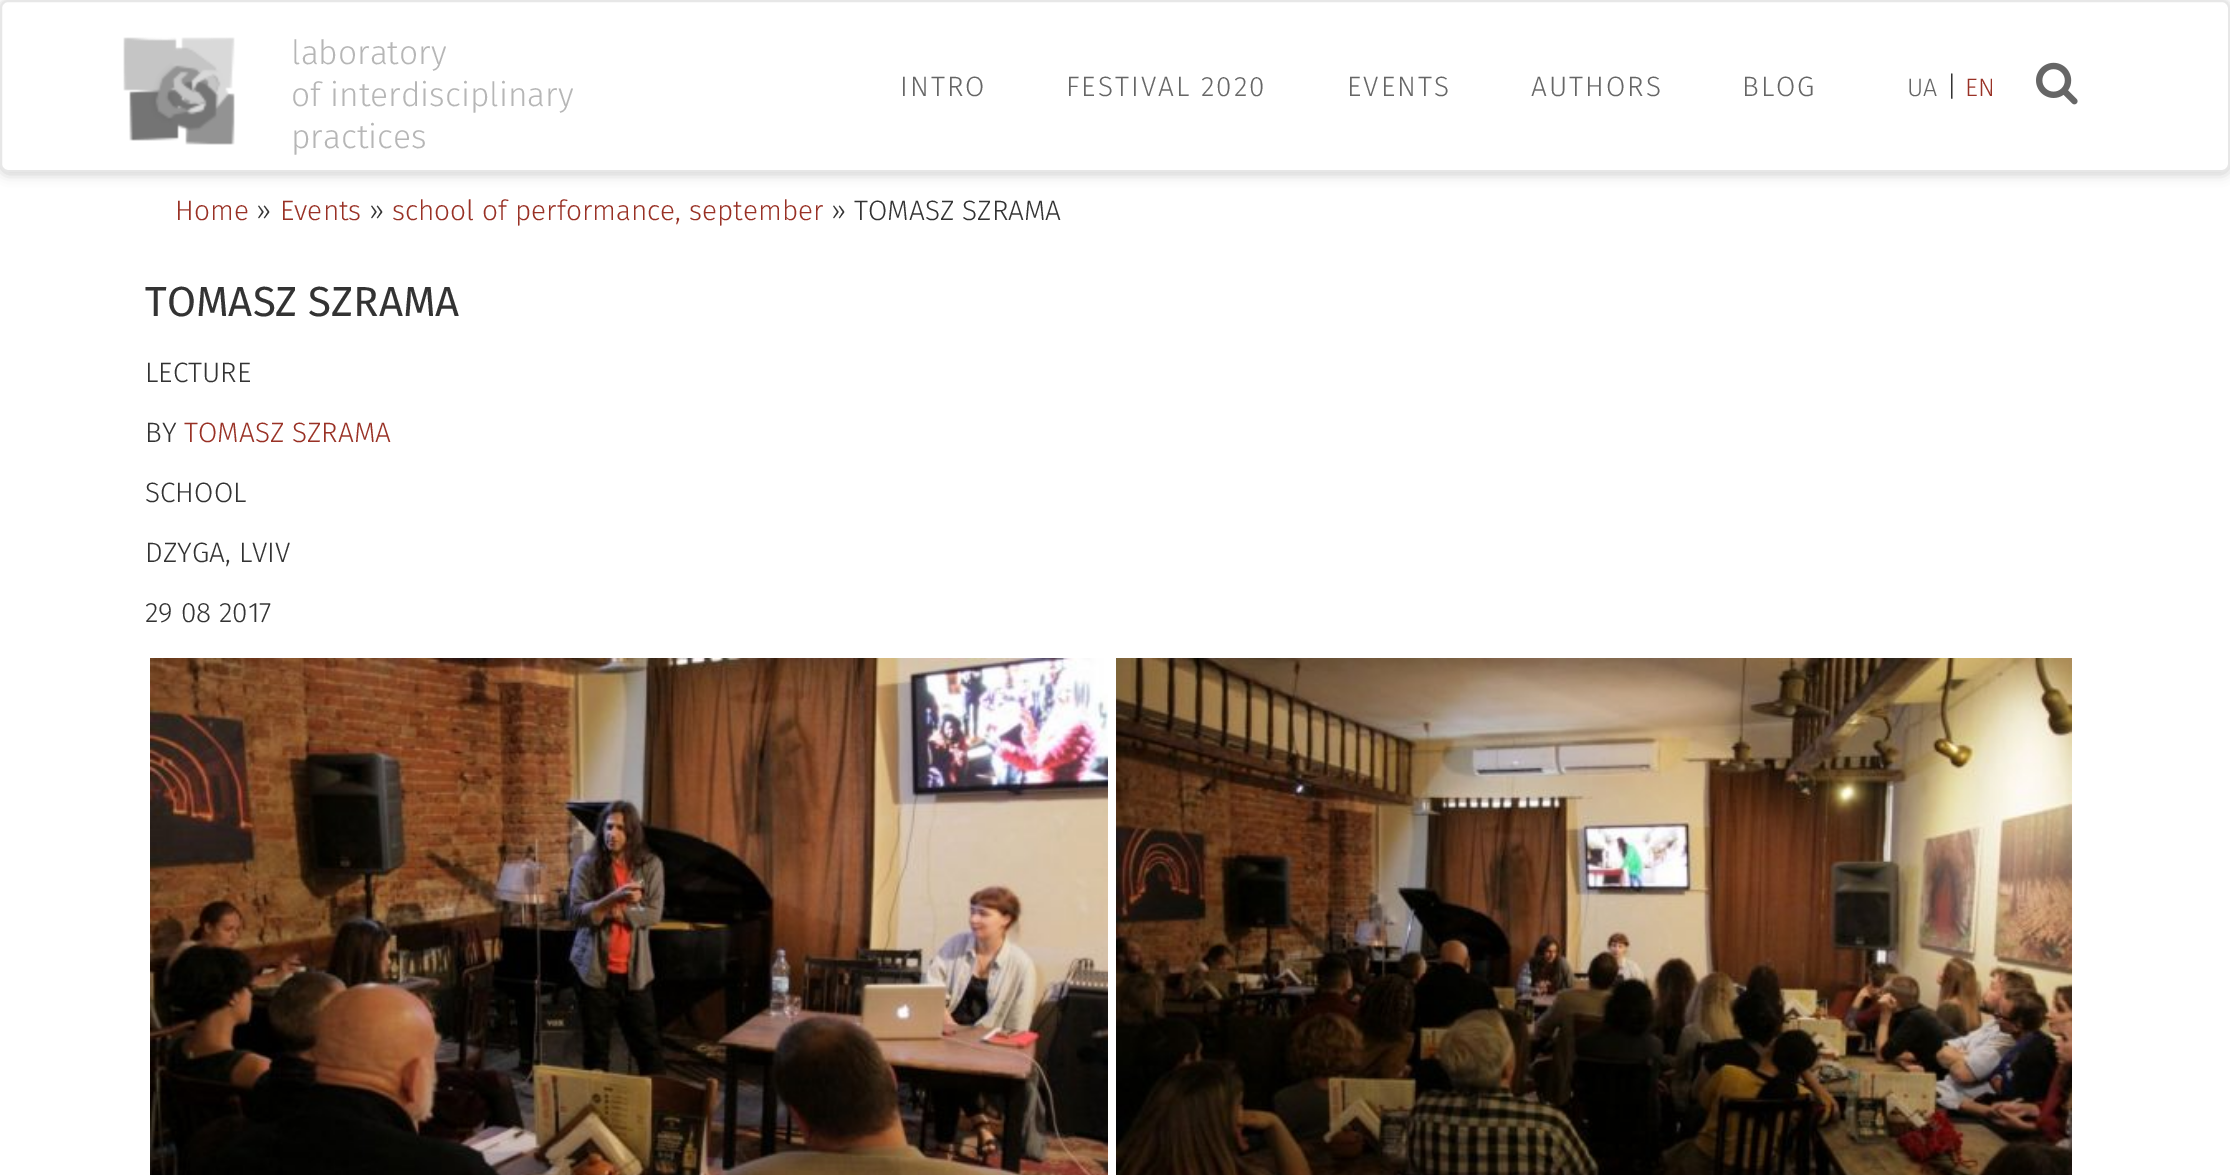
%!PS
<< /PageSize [2230 1175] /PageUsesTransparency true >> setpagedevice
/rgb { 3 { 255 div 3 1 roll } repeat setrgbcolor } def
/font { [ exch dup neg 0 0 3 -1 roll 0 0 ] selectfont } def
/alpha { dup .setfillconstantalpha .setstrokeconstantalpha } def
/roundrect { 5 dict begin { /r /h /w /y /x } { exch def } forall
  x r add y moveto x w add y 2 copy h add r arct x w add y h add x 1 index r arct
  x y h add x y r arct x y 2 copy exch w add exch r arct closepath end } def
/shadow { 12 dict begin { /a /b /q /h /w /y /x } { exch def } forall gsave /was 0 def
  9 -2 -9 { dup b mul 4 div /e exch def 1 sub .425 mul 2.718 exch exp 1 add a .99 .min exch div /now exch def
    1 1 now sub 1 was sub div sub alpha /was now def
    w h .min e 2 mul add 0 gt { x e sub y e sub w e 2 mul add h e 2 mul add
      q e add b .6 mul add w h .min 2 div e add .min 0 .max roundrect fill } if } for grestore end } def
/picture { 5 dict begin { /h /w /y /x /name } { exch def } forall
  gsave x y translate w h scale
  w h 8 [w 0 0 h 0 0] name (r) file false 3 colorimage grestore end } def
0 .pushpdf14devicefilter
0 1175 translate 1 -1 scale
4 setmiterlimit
255 255 255 rgb
0 0 2230 1175 rectfill
0 0 0 rgb
0 2 2230 172 8 6 0.2 shadow
255 255 255 rgb
1 1 2228 170 7 roundrect gsave fill grestore
231 231 231 rgb
2 setlinewidth
stroke
(img/1.rgb) 123 37 112 108 picture
(img/2.rgb) 2036 62 42 43 picture
(img/3.rgb) 150 658 958 517 picture
(img/4.rgb) 1116 658 956 517 picture
/FiraSans-Light 33.5 font
182 182 182 rgb
[
  [(laboratory) 291 64]
  [(of interdisciplinary) 291 106]
  [(practices) 291 148]
] { aload pop moveto show } forall
/FiraSans-Light 28 font
102 102 102 rgb
900 96 moveto 2 0 (INTRO) ashow
1066 96 moveto 2 0 (FESTIVAL 2020) ashow
1347 96 moveto 2 0 (EVENTS) ashow
1531 96 moveto 2 0 (AUTHORS) ashow
1742 96 moveto 2 0 (BLOG) ashow
/FiraSans-Light 25 font
1907 96 moveto (UA) show
/FiraSans-Light 28 font
51 51 51 rgb
1946 96 moveto (|) show
/FiraSans-Light 25 font
153 49 37 rgb
1965 96 moveto (EN) show
/FiraSans-Light 28 font
175 220 moveto (Home) show
51 51 51 rgb
256 220 moveto (») show
153 49 37 rgb
280 220 moveto (Events) show
51 51 51 rgb
369 220 moveto (») show
153 49 37 rgb
392 220 moveto (school of performance, september) show
51 51 51 rgb
831 220 moveto (» TOMASZ SZRAMA) show
/FiraSans-Regular 42 font
145 316 moveto (TOMASZ SZRAMA) show
/FiraSans-Light 28 font
145 382 moveto (LECTURE) show
145 442 moveto (BY) show
153 49 37 rgb
184 442 moveto (TOMASZ SZRAMA) show
51 51 51 rgb
[
  [(SCHOOL) 145 502]
  [(DZYGA, LVIV) 145 562]
  [(29 08 2017) 145 622]
] { aload pop moveto show } forall
.poppdf14devicefilter showpage
